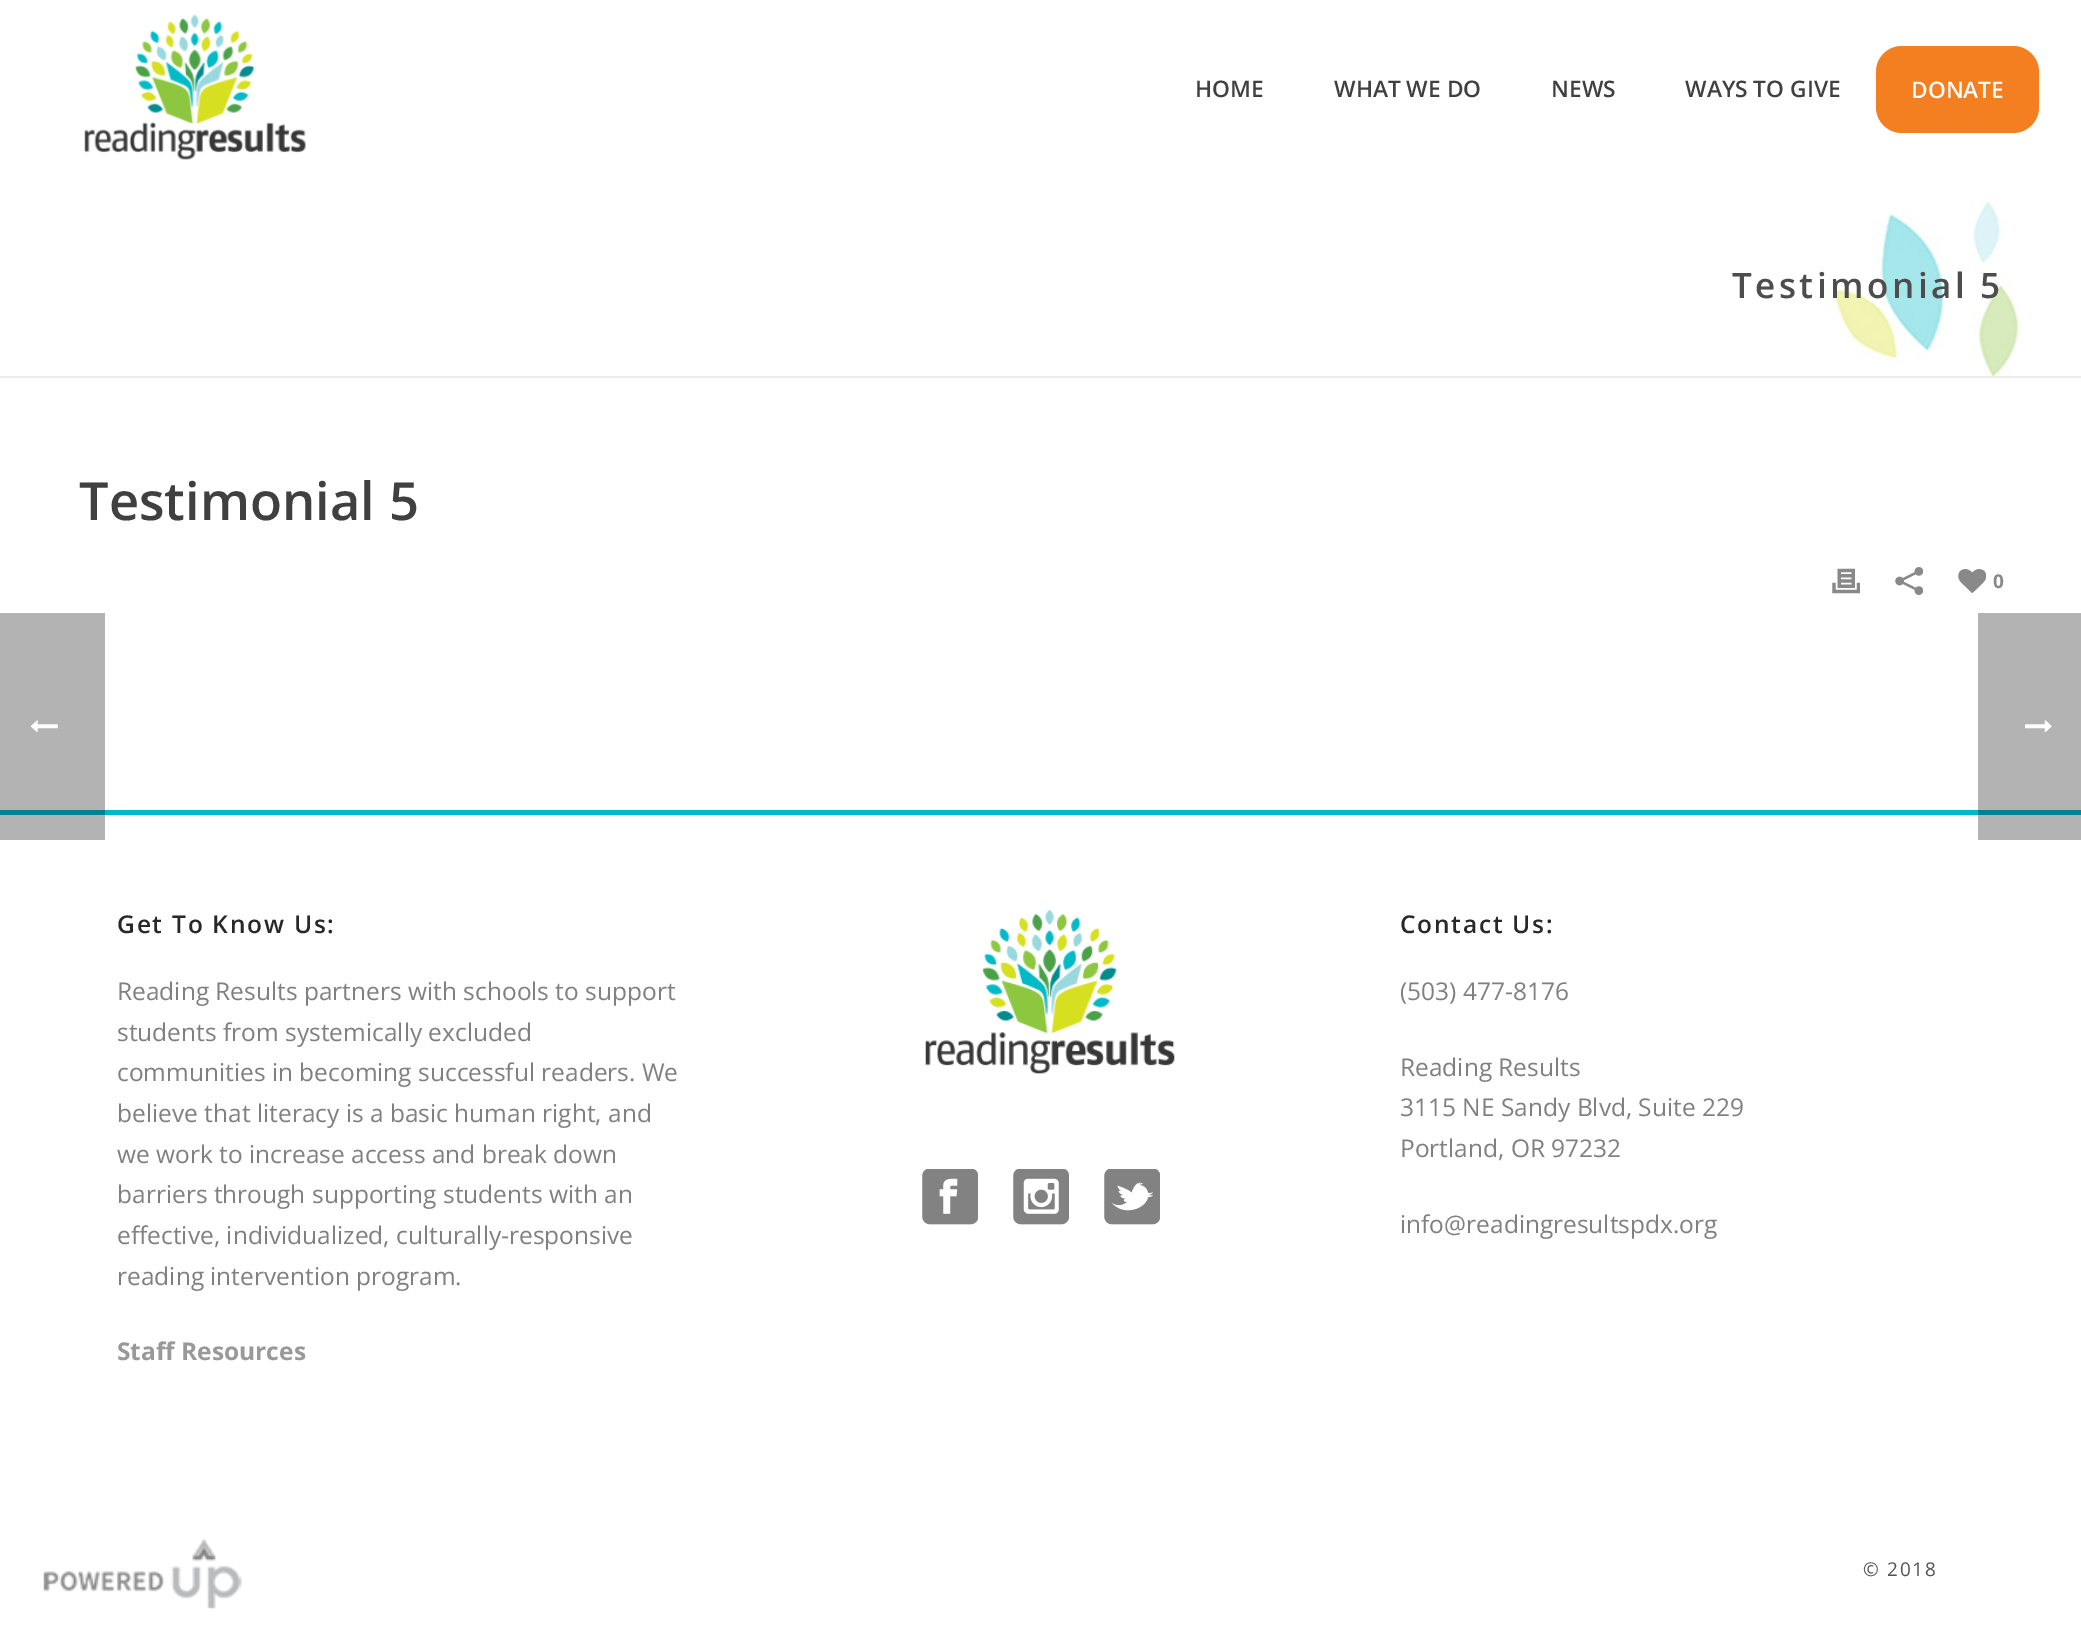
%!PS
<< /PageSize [2081 1625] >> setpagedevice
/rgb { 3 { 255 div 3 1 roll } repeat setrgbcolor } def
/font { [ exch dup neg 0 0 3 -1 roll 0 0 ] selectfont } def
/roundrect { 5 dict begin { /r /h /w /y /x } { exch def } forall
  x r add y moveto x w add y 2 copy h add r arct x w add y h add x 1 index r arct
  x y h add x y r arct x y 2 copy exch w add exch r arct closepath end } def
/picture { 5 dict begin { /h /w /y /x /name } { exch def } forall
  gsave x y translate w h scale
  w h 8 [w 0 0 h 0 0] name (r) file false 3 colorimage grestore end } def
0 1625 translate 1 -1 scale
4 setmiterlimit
255 255 255 rgb
0 0 2081 1625 rectfill
179 179 179 rgb
1978 613 103 227 rectfill
0 613 105 227 rectfill
(img/1.rgb) 1832 201 187 175 picture
237 237 237 rgb
0 376 2081 2 rectfill
(img/2.rgb) 84 14 222 146 picture
244 127 32 rgb
1876 46 163 87 26 roundrect fill
(img/3.rgb) 1832 568 28 26 picture
(img/4.rgb) 1895 567 28 28 picture
(img/5.rgb) 1958 569 28 24 picture
[
  [105 810 1873 5 2 185 201]
  [1978 810 103 5 1 130 141]
  [0 810 105 5 1 130 141]
] { aload pop rgb rectfill } forall
(img/6.rgb) 925 910 250 164 picture
(img/7.rgb) 922 1169 56 56 picture
(img/8.rgb) 1013 1169 56 56 picture
(img/9.rgb) 1104 1169 56 56 picture
(img/10.rgb) 43 1538 199 71 picture
(img/11.rgb) 30 720 28 13 picture
(img/12.rgb) 2025 720 27 13 picture
/OpenSans-SemiBold 22.75 font
64 64 64 rgb
[
  [(HOME) 1195 97]
  [(WHAT WE DO) 1334 97]
  [(NEWS) 1551 97]
  [(WAYS TO GIVE) 1685 97]
] { aload pop moveto show } forall
255 255 255 rgb
1911 98 moveto (DONATE) show
/OpenSans-SemiBold 35 font
77 77 77 rgb
1732 298 moveto 3.5 0 (Testimonial 5) ashow
/OpenSans-SemiBold 52.5 font
64 64 64 rgb
79 520 moveto (Testimonial 5) show
/OpenSans-Bold 19 font
137 137 137 rgb
1993 588 moveto (0) show
/OpenSans-SemiBold 24.5 font
40 40 40 rgb
117 933 moveto 1.75 0 (Get To Know Us:) ashow
/OpenSans-Regular 24.5 font
128 128 128 rgb
[
  [(Reading Results partners with schools to support) 117 1000]
  [(students from systemically excluded) 117 1041]
  [(communities in becoming successful readers. We) 117 1081]
  [(believe that literacy is a basic human right, and) 117 1122]
  [(we work to increase access and break down) 117 1163]
  [(barriers through supporting students with an) 117 1203]
  [(effective, individualized, culturally-responsive) 117 1244]
  [(reading intervention program.) 117 1285]
] { aload pop moveto show } forall
/OpenSans-Bold 24.5 font
153 153 153 rgb
117 1360 moveto (Staff Resources) show
/OpenSans-SemiBold 24.5 font
40 40 40 rgb
1400 933 moveto 1.75 0 (Contact Us:) ashow
/OpenSans-Regular 24.5 font
128 128 128 rgb
[
  [(\(503\) 477-8176) 1400 1000]
  [(Reading Results) 1400 1076]
  [(3115 NE Sandy Blvd, Suite 229) 1400 1116]
  [(Portland, OR 97232) 1400 1157]
  [(info@readingresultspdx.org) 1400 1233]
] { aload pop moveto show } forall
/OpenSans-Regular 19 font
83 83 83 rgb
1863 1576 moveto 1.75 0 (© 2018) ashow
showpage
